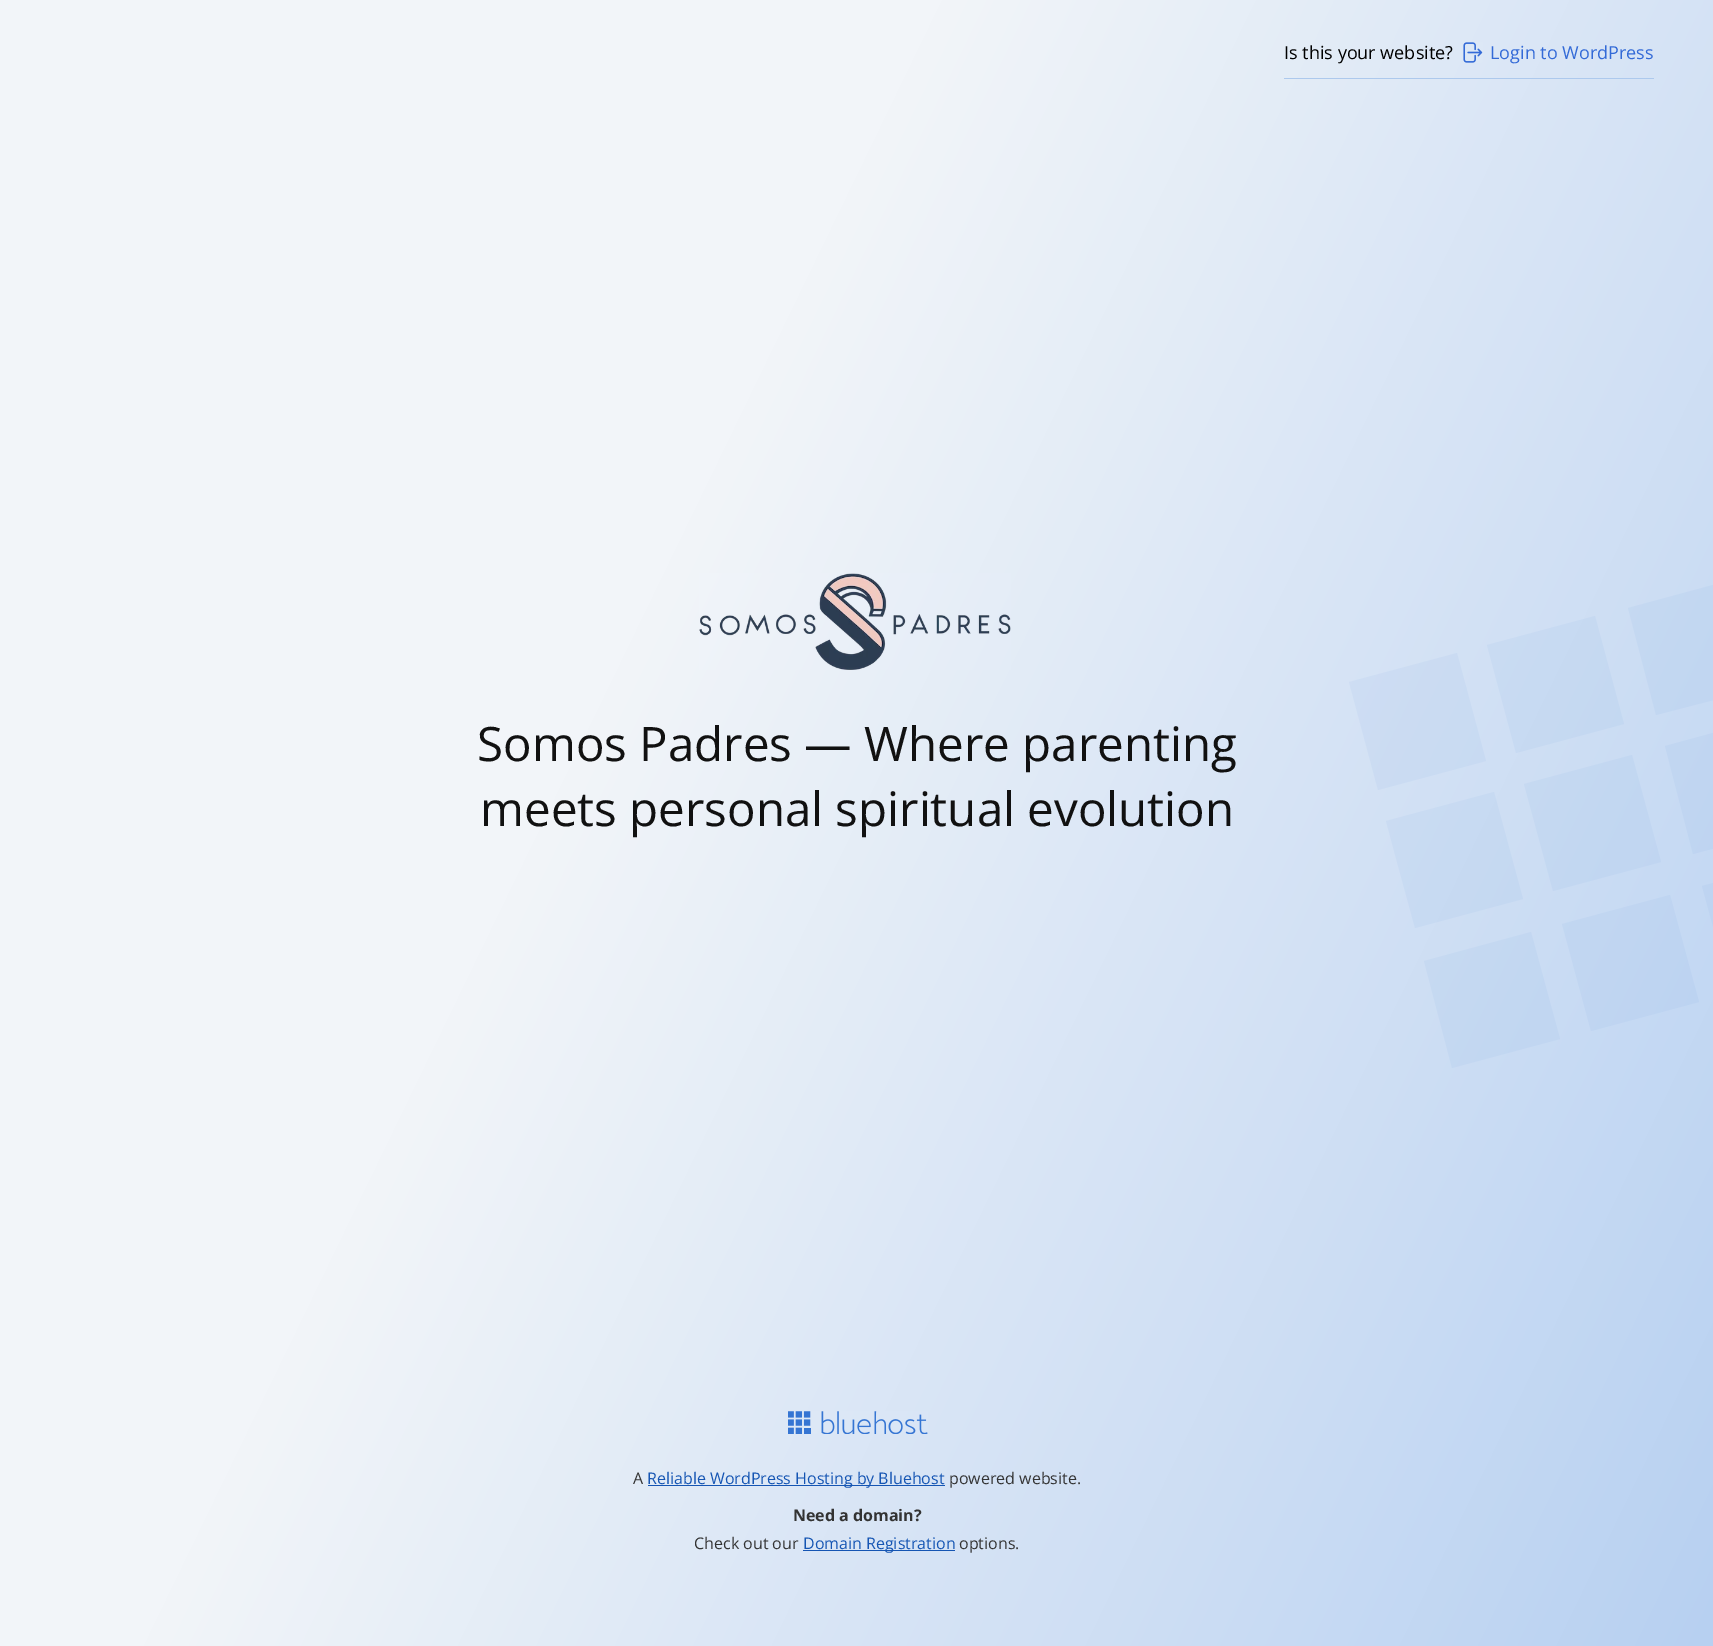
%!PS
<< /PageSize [1713 1646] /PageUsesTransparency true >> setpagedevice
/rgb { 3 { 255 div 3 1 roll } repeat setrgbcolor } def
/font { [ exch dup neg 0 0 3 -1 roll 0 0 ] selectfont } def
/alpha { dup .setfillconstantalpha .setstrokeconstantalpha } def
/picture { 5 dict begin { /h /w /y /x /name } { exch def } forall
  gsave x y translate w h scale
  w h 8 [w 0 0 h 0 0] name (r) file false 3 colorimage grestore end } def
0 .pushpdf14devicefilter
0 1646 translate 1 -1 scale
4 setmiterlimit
255 255 255 rgb
0 0 1713 1646 rectfill
gsave 0 0 moveto 1713 0 lineto 1713 1646 lineto 0 1646 lineto closepath clip newpath
<< /ShadingType 2 /ColorSpace /DeviceRGB /Coords [-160 330 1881 1320] /Extend [true true] /Function << /FunctionType 3 /Domain [0 1] /Functions [<< /FunctionType 2 /Domain [0 1] /C0 [0.949 0.961 0.976] /C1 [0.949 0.961 0.976] /N 1 >> << /FunctionType 2 /Domain [0 1] /C0 [0.949 0.961 0.976] /C1 [0.718 0.816 0.945] /N 1 >>] /Bounds [0.37] /Encode [0 1 0 1] >> >> shfill grestore
173 201 237 rgb
1284 78 370 1 rectfill
(img/1.rgb) 1463 42 20 21 picture
(img/2.rgb) 699 573 312 97 picture
0.05 alpha
53 117 211 rgb
1397 862 moveto 1415 928 lineto 1523 899 lineto 1494 792 lineto 1386 821 lineto closepath 1424 961 moveto 1452 1068 lineto 1560 1039 lineto 1531 932 lineto closepath 1562 924 moveto 1591 1031 lineto 1699 1002 lineto 1670 895 lineto closepath 1628 608 moveto 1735 579 lineto 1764 687 lineto 1656 715 lineto closepath 1487 645 moveto 1595 616 lineto 1624 724 lineto 1516 753 lineto closepath 1349 682 moveto 1457 653 lineto 1486 761 lineto 1378 790 lineto closepath 1665 746 moveto 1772 717 lineto 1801 825 lineto 1693 854 lineto closepath 1524 784 moveto 1632 755 lineto 1661 862 lineto 1553 891 lineto closepath eofill
1 alpha
190 212 241 rgb
1702 886 moveto 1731 993 lineto 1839 965 lineto 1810 857 lineto closepath fill
(img/3.rgb) 788 1411 140 23 picture
21 85 179 rgb
648 1485 297 1 rectfill
803 1550 152 1 rectfill
/OpenSans-Regular 18 font
0 0 0 rgb
1284 59 moveto (Is this your website?) show
51 106 215 rgb
1490 59 moveto (Login to WordPress) show
/OpenSans-Regular 47.5 font
17 17 17 rgb
477 761 moveto (Somos Padres — Where parenting) show
480 826 moveto (meets personal spiritual evolution) show
/OpenSans-Regular 16 font
51 51 51 rgb
633 1484 moveto (A) show
21 85 179 rgb
647 1484 moveto (Reliable WordPress Hosting by Bluehost) show
51 51 51 rgb
949 1484 moveto (powered website.) show
/OpenSans-Bold 16 font
793 1521 moveto (Need a domain?) show
/OpenSans-Regular 16 font
694 1549 moveto (Check out our) show
21 85 179 rgb
803 1549 moveto (Domain Registration) show
51 51 51 rgb
959 1549 moveto (options.) show
.poppdf14devicefilter showpage
